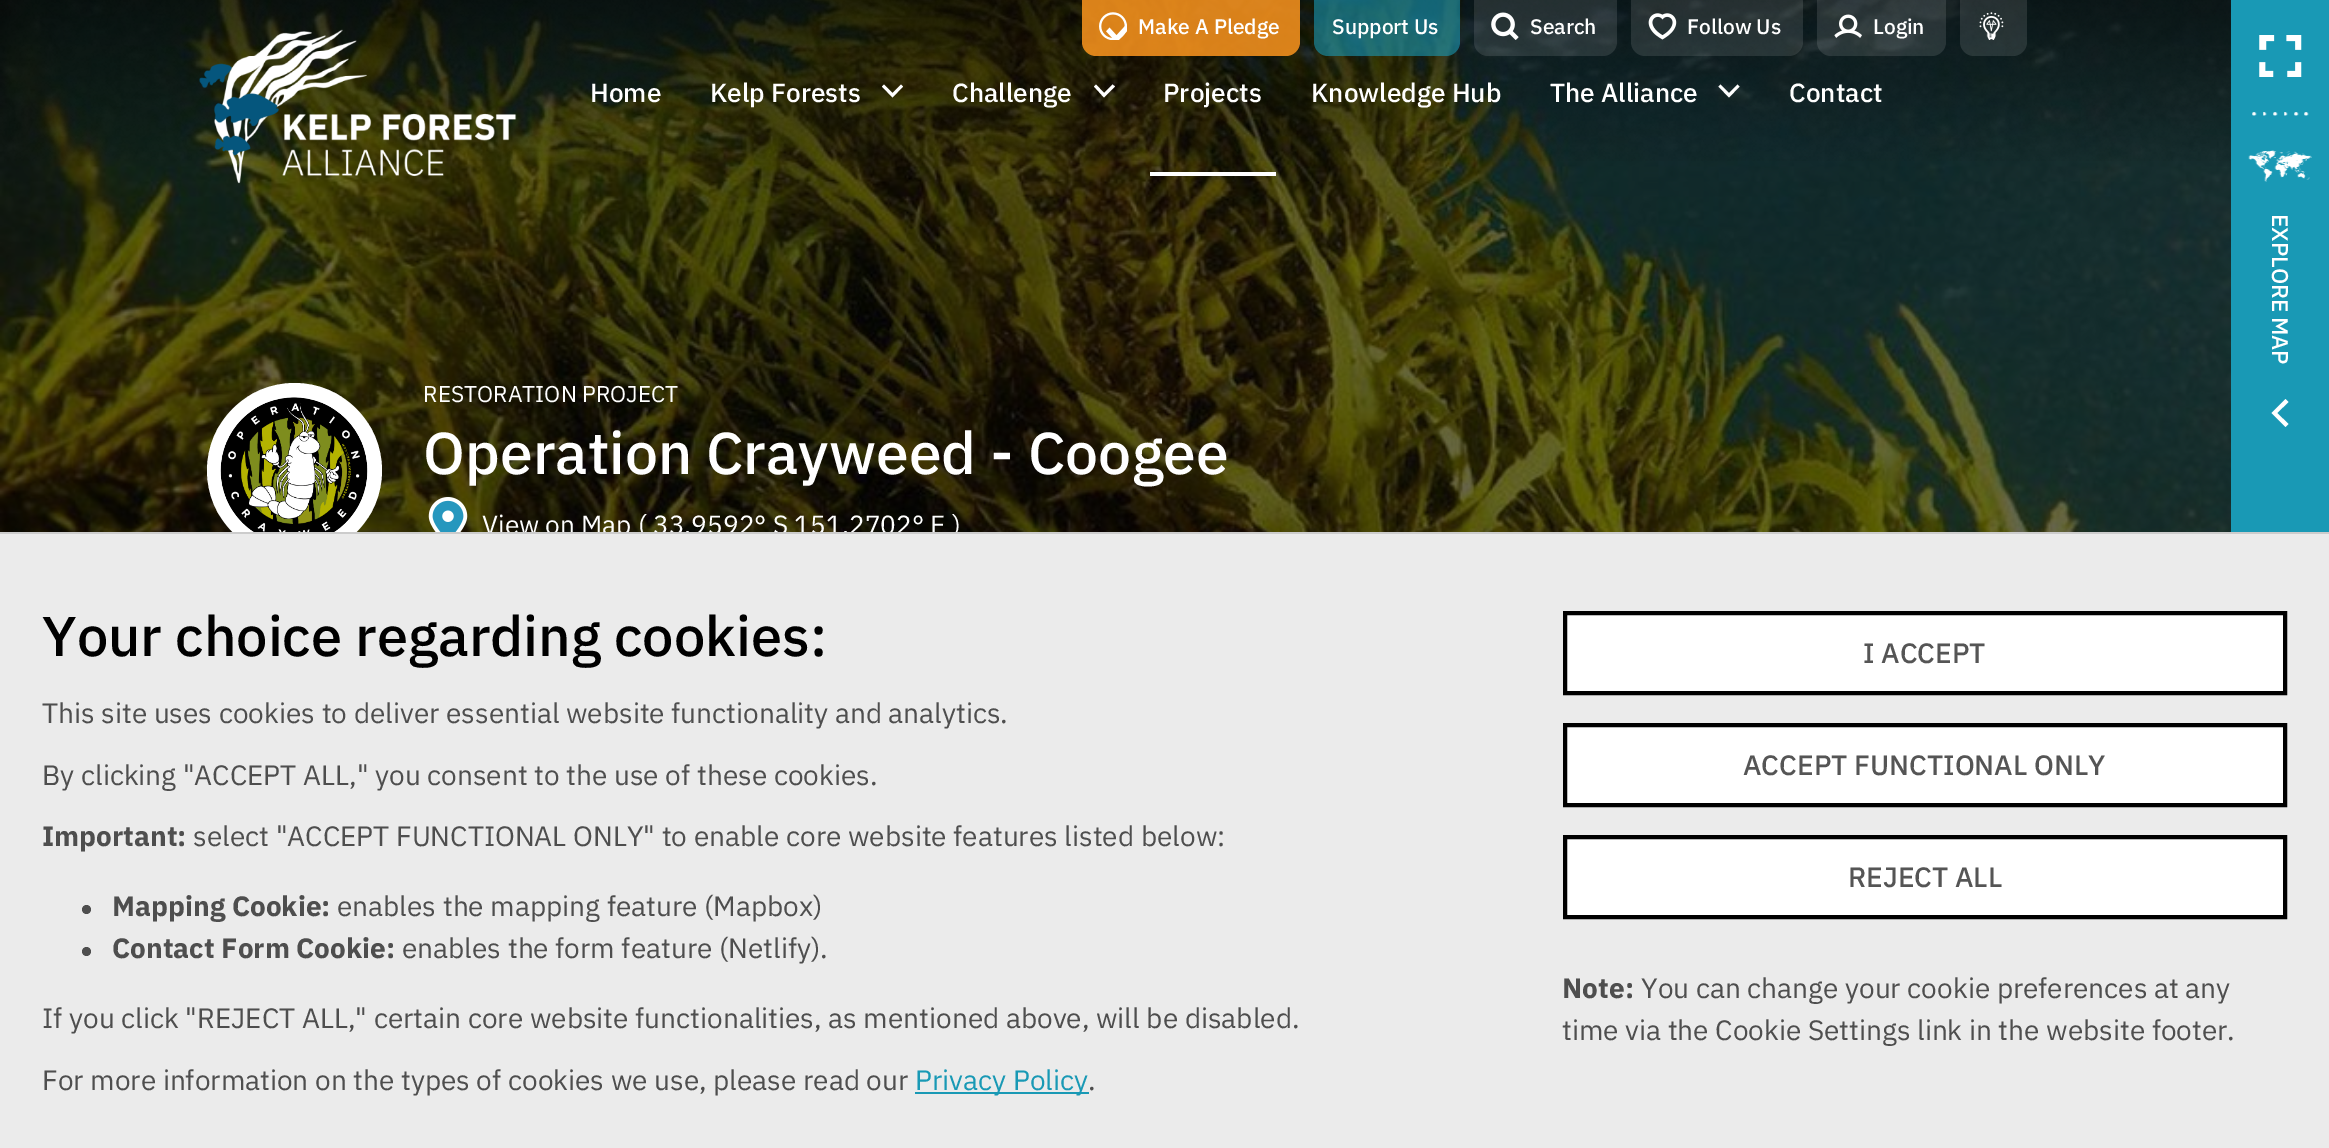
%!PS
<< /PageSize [2329 1148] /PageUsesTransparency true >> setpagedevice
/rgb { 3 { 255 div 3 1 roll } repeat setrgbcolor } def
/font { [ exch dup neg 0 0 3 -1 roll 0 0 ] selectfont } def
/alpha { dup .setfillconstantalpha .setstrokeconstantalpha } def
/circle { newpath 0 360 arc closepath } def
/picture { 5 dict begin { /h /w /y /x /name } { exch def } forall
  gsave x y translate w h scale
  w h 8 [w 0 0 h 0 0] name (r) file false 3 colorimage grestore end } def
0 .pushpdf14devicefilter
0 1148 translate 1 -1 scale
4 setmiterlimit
255 255 255 rgb
0 0 2329 1148 rectfill
(img/1.rgb) 0 0 2231 532 picture
(img/2.rgb) 0 0 2231 161 picture
(img/3.rgb) 199 29 318 155 picture
0.87 alpha
247 146 29 rgb
1082 0 moveto 1300 0 lineto 1300 42 lineto 1300 49.5 1293.5 56 1286 56 curveto 1096 56 lineto 1088.5 56 1082 49.5 1082 42 curveto closepath fill
1 alpha
(img/4.rgb) 1099 12 28 28 picture
0.6 alpha
25 153 181 rgb
1314 0 moveto 1460 0 lineto 1460 42 lineto 1460 49.5 1453.5 56 1446 56 curveto 1328 56 lineto 1320.5 56 1314 49.5 1314 42 curveto closepath fill
0.11 alpha
255 255 255 rgb
1474 0 moveto 1617 0 lineto 1617 42 lineto 1617 49.5 1610.5 56 1603 56 curveto 1488 56 lineto 1480.5 56 1474 49.5 1474 42 curveto closepath fill
1 alpha
(img/5.rgb) 1491 12 28 28 picture
0.11 alpha
1631 0 moveto 1803 0 lineto 1803 42 lineto 1803 49.5 1796.5 56 1789 56 curveto 1645 56 lineto 1637.5 56 1631 49.5 1631 42 curveto closepath fill
1 alpha
(img/6.rgb) 1648 13 29 27 picture
0.11 alpha
1817 0 moveto 1946 0 lineto 1946 42 lineto 1946 49.5 1939.5 56 1932 56 curveto 1831 56 lineto 1823.5 56 1817 49.5 1817 42 curveto closepath fill
1 alpha
(img/7.rgb) 1834 14 28 24 picture
0.11 alpha
1960 0 moveto 2027 0 lineto 2027 42 lineto 2027 49.5 2020.5 56 2013 56 curveto 1974 56 lineto 1966.5 56 1960 49.5 1960 42 curveto closepath fill
1 alpha
(img/8.rgb) 1979 12 25 28 picture
882 86.5 moveto 884 84.5 lineto 892.5 93 lineto 901 84.5 lineto 903 86.5 lineto 892.5 97.5 lineto closepath fill
1094 86.5 moveto 1096 84.5 lineto 1104 93 lineto 1112.5 84.5 lineto 1115 86.5 lineto 1104 97.5 lineto closepath fill
1150 172 126 4 rectfill
1718.5 86.5 moveto 1720.5 84.5 lineto 1729 93 lineto 1737.5 84.5 lineto 1739.5 86.5 lineto 1729 97.5 lineto closepath fill
294.5 470.5 87.5 circle fill
(img/9.rgb) 220 397 148 135 picture
(img/10.rgb) 428 497 40 35 picture
25 153 181 rgb
2231 0 98 532 rectfill
(img/11.rgb) 2259 35 43 42 picture
(img/12.rgb) 2252 112 57 4 picture
(img/13.rgb) 2248 150 64 32 picture
255 255 255 rgb
2285.5 399 moveto 2288.5 402 lineto 2277 413 lineto 2288.5 424 lineto 2285.5 427 lineto 2271.5 413 lineto closepath fill
/IBMPlexSans-Medium 21 font
[
  [(Make A Pledge) 1138 34]
  [(Support Us) 1332 34]
  [(Search) 1530 34]
  [(Follow Us) 1687 34]
  [(Login) 1873 34]
] { aload pop moveto show } forall
/IBMPlexSans-Medium 26.25 font
[
  [(Home) 590 102]
  [(Kelp Forests) 710 102]
  [(Challenge) 952 102]
  [(Projects) 1163 102]
  [(Knowledge Hub) 1311 102]
  [(The Alliance) 1550 102]
  [(Contact) 1789 102]
] { aload pop moveto show } forall
/IBMPlexSans-Regular 22.75 font
423 402 moveto (RESTORATION PROJECT) show
/IBMPlexSans-Medium 59 font
423 474 moveto (Operation Crayweed - Coogee) show
/IBMPlexSans-Regular 26.25 font
482 534 moveto (View on Map \( 33.9592° S 151.2702° E \)) show
/IBMPlexSans-Medium 22.75 font
gsave 2272 214 translate 90 rotate 0 0 moveto -1 0 32 (EXPLORE MAP) widthshow grestore
235 235 235 rgb
0 534 2329 614 rectfill
204 204 204 rgb
0 532 2329 2 rectfill
/IBMPlexSans-Medium 56 font
0 0 0 rgb
42 656 moveto (Your choice regarding cookies:) show
/IBMPlexSans-Regular 28 font
78 78 78 rgb
42 723 moveto (This site uses cookies to deliver essential website functionality and analytics.) show
42 785 moveto (By clicking "ACCEPT ALL," you consent to the use of these cookies.) show
/IBMPlexSans-Bold 28 font
42 846 moveto (Important:) show
/IBMPlexSans-Regular 28 font
193 846 moveto (select "ACCEPT FUNCTIONAL ONLY" to enable core website features listed below:) show
86.5 909.5 4.5 circle fill
/IBMPlexSans-Bold 28 font
112 916 moveto (Mapping Cookie:) show
/IBMPlexSans-Regular 28 font
337 916 moveto (enables the mapping feature \(Mapbox\)) show
86.5 951.5 4.5 circle fill
/IBMPlexSans-Bold 28 font
112 958 moveto (Contact Form Cookie:) show
/IBMPlexSans-Regular 28 font
[
  [(enables the form feature \(Netlify\).) 402 958]
  [(If you click "REJECT ALL," certain core website functionalities, as mentioned above, will be disabled.) 42 1028]
  [(For more information on the types of cookies we use, please read our) 42 1090]
] { aload pop moveto show } forall
25 153 181 rgb
915 1092 174 2 rectfill
915 1090 moveto (Privacy Policy) show
78 78 78 rgb
1088 1090 moveto (.) show
255 255 255 rgb
1565 613 moveto 2285 613 lineto 2285 693 lineto 1565 693 lineto closepath gsave fill grestore
0 0 0 rgb
4 setlinewidth
stroke
/IBMPlexSans-Medium 28 font
85 85 85 rgb
1863 663 moveto (I ACCEPT) show
255 255 255 rgb
1565 725 moveto 2285 725 lineto 2285 805 lineto 1565 805 lineto closepath gsave fill grestore
0 0 0 rgb
stroke
85 85 85 rgb
1743 775 moveto (ACCEPT FUNCTIONAL ONLY) show
255 255 255 rgb
1565 837 moveto 2285 837 lineto 2285 917 lineto 1565 917 lineto closepath gsave fill grestore
0 0 0 rgb
stroke
85 85 85 rgb
1848 887 moveto (REJECT ALL) show
/IBMPlexSans-Bold 28 font
78 78 78 rgb
1562 998 moveto (Note:) show
/IBMPlexSans-Regular 28 font
1641 998 moveto (You can change your cookie preferences at any) show
1562 1040 moveto (time via the Cookie Settings link in the website footer.) show
.poppdf14devicefilter showpage
